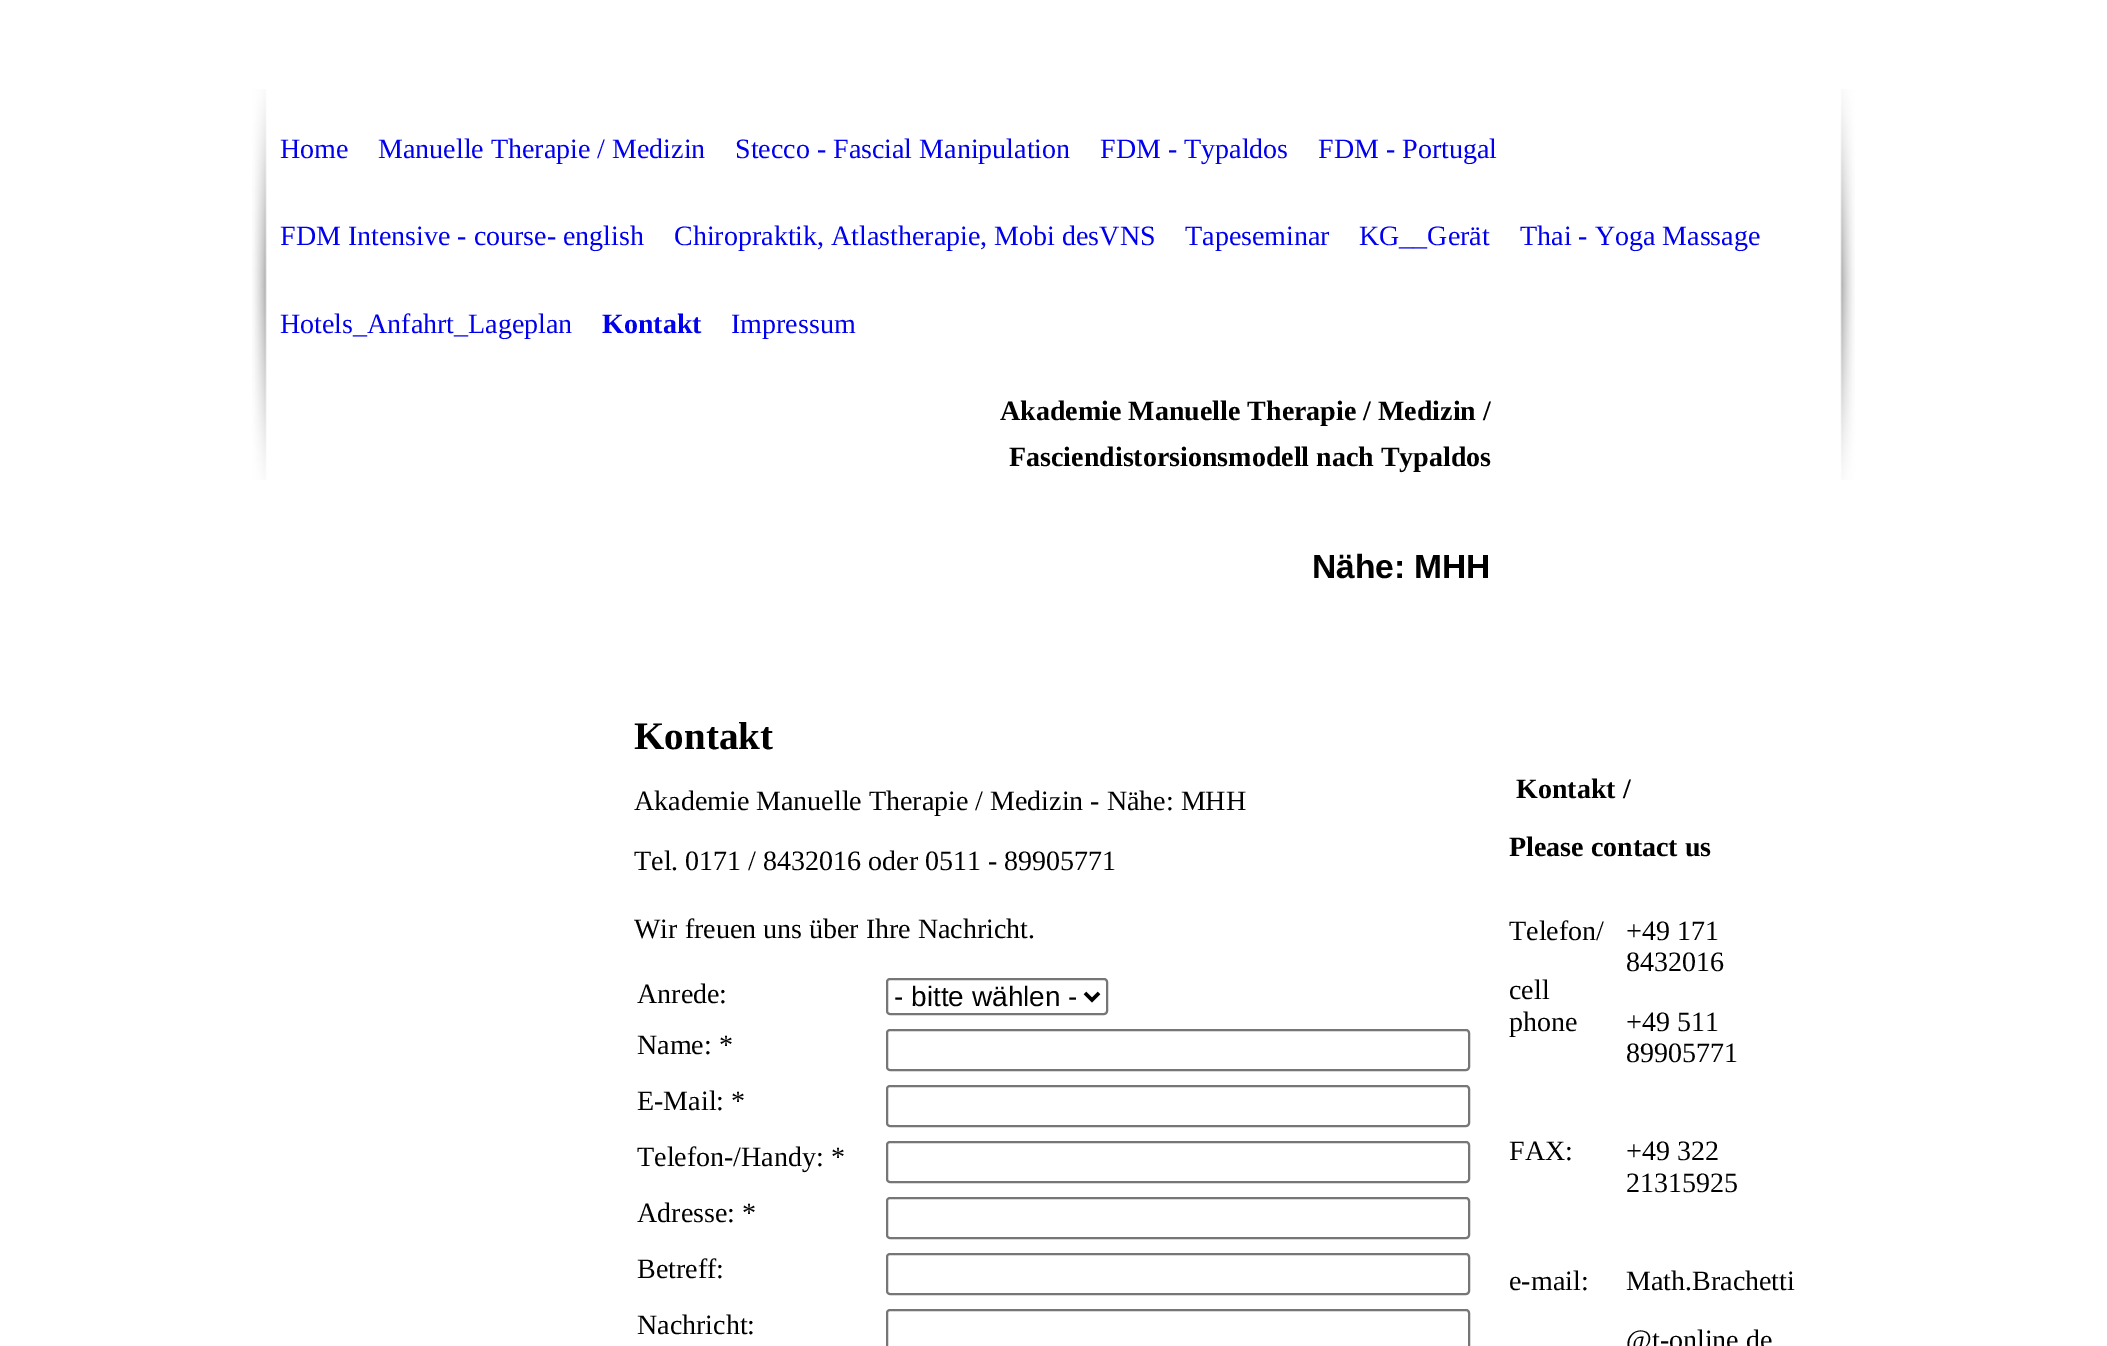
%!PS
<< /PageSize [2107 1346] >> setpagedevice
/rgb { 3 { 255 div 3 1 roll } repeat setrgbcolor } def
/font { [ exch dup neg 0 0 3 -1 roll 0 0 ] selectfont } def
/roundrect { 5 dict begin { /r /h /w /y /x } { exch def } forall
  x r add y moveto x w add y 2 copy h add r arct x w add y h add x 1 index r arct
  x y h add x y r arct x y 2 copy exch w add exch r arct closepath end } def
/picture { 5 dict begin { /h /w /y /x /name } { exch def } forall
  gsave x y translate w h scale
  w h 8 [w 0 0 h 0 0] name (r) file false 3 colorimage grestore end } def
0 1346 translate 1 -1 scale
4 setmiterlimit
255 255 255 rgb
0 0 2107 1346 rectfill
(img/1.rgb) 252 89 1603 391 picture
118 118 118 rgb
2 setlinewidth
887 979 220 35 3 roundrect stroke
0 0 0 rgb
3.5 setlinewidth
1085 993 moveto 1092 1000 lineto 1099 993 lineto stroke
118 118 118 rgb
2 setlinewidth
887 1030 582 40 3 roundrect stroke
887 1086 582 40 3 roundrect stroke
887 1142 582 40 3 roundrect stroke
887 1198 582 40 3 roundrect stroke
887 1254 582 40 3 roundrect stroke
887 1310 582 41 3 roundrect stroke
/LiberationSerif-Regular 28 font
0 0 238 rgb
[
  [(Home) 280 158]
  [(Manuelle Therapie / Medizin) 378 158]
  [(Stecco - Fascial Manipulation) 735 158]
  [(FDM - Typaldos) 1100 158]
  [(FDM - Portugal) 1318 158]
  [(FDM Intensive - course- english) 280 245]
  [(Chiropraktik, Atlastherapie, Mobi desVNS) 674 245]
  [(Tapeseminar) 1185 245]
  [(KG__Gerät) 1359 245]
  [(Thai - Yoga Massage) 1520 245]
  [(Hotels_Anfahrt_Lageplan) 280 333]
] { aload pop moveto show } forall
/LiberationSerif-Bold 28 font
602 333 moveto (Kontakt) show
/LiberationSerif-Regular 28 font
731 333 moveto (Impressum) show
/LiberationSerif-Bold 28 font
0 0 0 rgb
1000 420 moveto (Akademie Manuelle Therapie / Medizin /) show
1009 466 moveto (Fasciendistorsionsmodell nach Typaldos) show
/LiberationSans-Bold 33.5 font
1312 578 moveto (Nähe: MHH) show
/LiberationSerif-Bold 39 font
634 749 moveto (Kontakt) show
/LiberationSerif-Regular 28 font
[
  [(Akademie Manuelle Therapie / Medizin - Nähe: MHH) 634 810]
  [(Tel. 0171 / 8432016 oder 0511 - 89905771) 634 870]
  [(Wir freuen uns über Ihre Nachricht.) 634 938]
  [(Anrede:) 637 1003]
] { aload pop moveto show } forall
/LiberationSans-Regular 28 font
894 1006 moveto (- bitte wählen -) show
/LiberationSerif-Regular 28 font
[
  [(Name: *) 637 1054]
  [(E-Mail: *) 637 1110]
  [(Telefon-/Handy: *) 637 1166]
  [(Adresse: *) 637 1222]
  [(Betreff:) 637 1278]
  [(Nachricht:) 637 1334]
] { aload pop moveto show } forall
/LiberationSerif-Bold 28 font
1516 798 moveto (Kontakt /) show
1509 856 moveto (Please contact us) show
/LiberationSerif-Regular 28 font
[
  [(Telefon/) 1509 940]
  [(cell) 1509 999]
  [(phone) 1509 1031]
  [(+49 171) 1626 940]
  [(8432016) 1626 971]
  [(+49 511) 1626 1031]
  [(89905771) 1626 1062]
  [(FAX:) 1509 1160]
  [(+49 322) 1626 1160]
  [(21315925) 1626 1192]
  [(e-mail:) 1509 1290]
  [(Math.Brachetti) 1626 1290]
  [(@t-online.de) 1626 1349]
] { aload pop moveto show } forall
showpage
